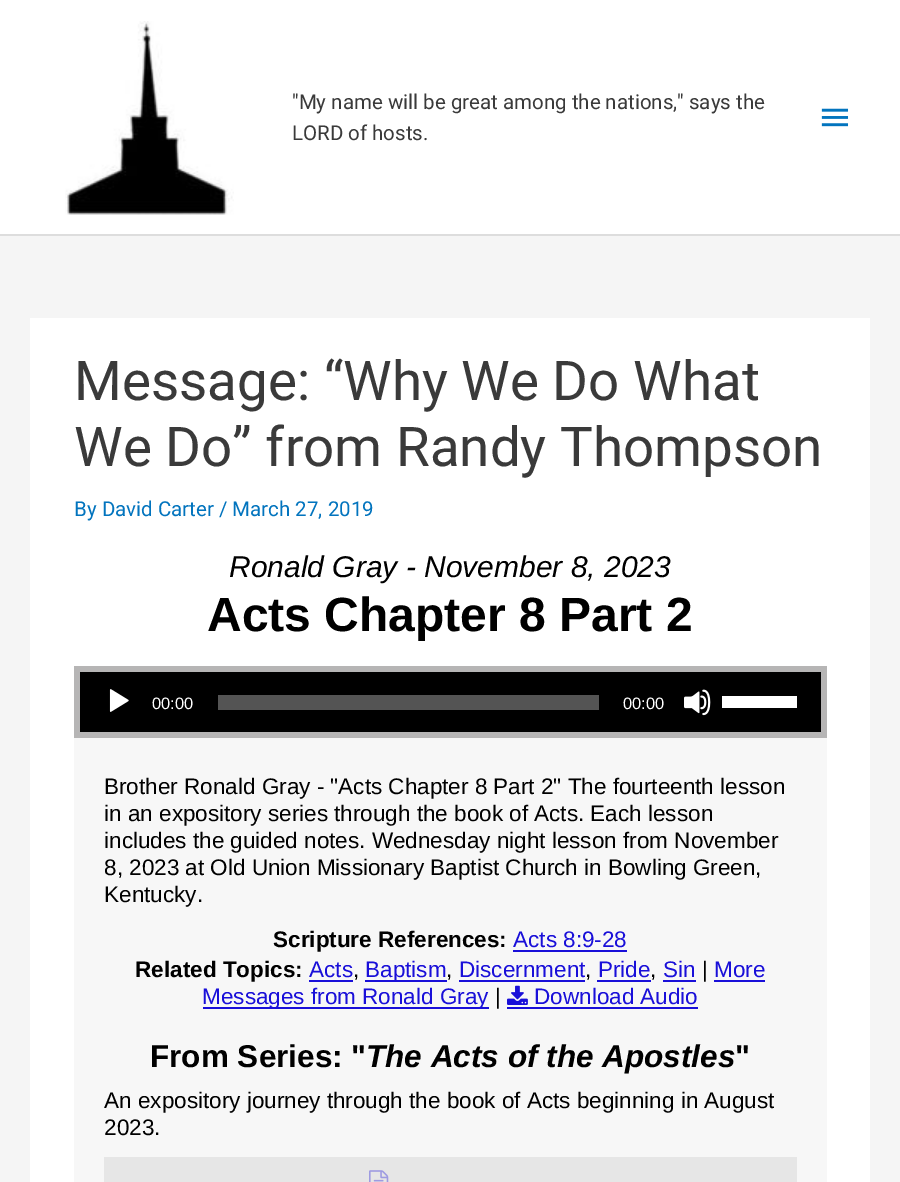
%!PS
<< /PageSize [900 1182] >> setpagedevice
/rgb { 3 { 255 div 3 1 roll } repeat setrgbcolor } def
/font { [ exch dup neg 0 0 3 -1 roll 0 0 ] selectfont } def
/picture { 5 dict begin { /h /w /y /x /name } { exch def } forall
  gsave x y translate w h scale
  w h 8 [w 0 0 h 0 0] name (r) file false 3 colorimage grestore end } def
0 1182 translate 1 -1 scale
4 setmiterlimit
245 245 245 rgb
0 0 900 1182 rectfill
255 255 255 rgb
0 0 900 234 rectfill
221 221 221 rgb
0 234 900 2 rectfill
(img/1.rgb) 65 21 169 194 picture
(img/2.rgb) 821 108 28 19 picture
[
  [30 318 840 864 255 255 255]
  [74 738 753 444 247 247 247]
  [74 666 753 72 182 181 181]
  [80 672 741 60 0 0 0]
] { aload pop rgb rectfill } forall
(img/3.rgb) 109 689 20 23 picture
84 84 84 rgb
218 695 381 15 rectfill
(img/4.rgb) 684 689 27 27 picture
[
  [722 696 75 12 255 255 255]
  [513 950 114 2 25 15 217]
  [309 980 44 2 25 15 217]
  [365 980 82 2 25 15 217]
  [459 980 126 2 25 15 217]
  [597 980 54 2 25 15 217]
  [663 980 33 2 25 15 217]
  [714 980 51 2 25 15 217]
  [203 1007 286 2 25 15 217]
] { aload pop rgb rectfill } forall
(img/5.rgb) 507 985 21 20 picture
507 1007 191 2 rectfill
230 230 230 rgb
104 1157 693 25 rectfill
(img/6.rgb) 369 1170 20 12 picture
/Roboto-Regular 20.5 font
58 58 58 rgb
292 109 moveto ("My name will be great among the nations," says the) show
292 140 moveto (LORD of hosts.) show
/Roboto-Regular 54.75 font
74 400 moveto (Message: “Why We Do What) show
74 466 moveto (We Do” from Randy Thompson) show
/Roboto-Regular 20.5 font
2 116 190 rgb
74 516 moveto (By David Carter / March 27, 2019) show
/LiberationSans-Italic 30 font
0 0 0 rgb
229 577 moveto (Ronald Gray - November 8, 2023) show
/LiberationSans-Bold 48 font
207 631 moveto (Acts Chapter 8 Part 2) show
/LiberationSans-Regular 16.5 font
255 255 255 rgb
152 709 moveto (00:00) show
623 709 moveto (00:00) show
/LiberationSans-Regular 22.5 font
0 0 0 rgb
[
  [(Brother Ronald Gray - "Acts Chapter 8 Part 2" The fourteenth lesson) 104 794]
  [(in an expository series through the book of Acts. Each lesson) 104 821]
  [(includes the guided notes. Wednesday night lesson from November) 104 848]
  [(8, 2023 at Old Union Missionary Baptist Church in Bowling Green,) 104 875]
  [(Kentucky.) 104 902]
] { aload pop moveto show } forall
/LiberationSans-Bold 22.5 font
273 947 moveto (Scripture References:) show
/LiberationSans-Regular 22.5 font
25 15 217 rgb
513 947 moveto (Acts 8:9-28) show
/LiberationSans-Bold 22.5 font
0 0 0 rgb
135 977 moveto (Related Topics:) show
/LiberationSans-Regular 22.5 font
25 15 217 rgb
309 977 moveto (Acts) show
0 0 0 rgb
353 977 moveto (,) show
25 15 217 rgb
365 977 moveto (Baptism) show
0 0 0 rgb
446 977 moveto (,) show
25 15 217 rgb
459 977 moveto (Discernment) show
0 0 0 rgb
585 977 moveto (,) show
25 15 217 rgb
598 977 moveto (Pride) show
0 0 0 rgb
650 977 moveto (,) show
25 15 217 rgb
663 977 moveto (Sin) show
0 0 0 rgb
702 977 moveto (|) show
25 15 217 rgb
714 977 moveto (More) show
202 1004 moveto (Messages from Ronald Gray) show
0 0 0 rgb
495 1004 moveto (|) show
25 15 217 rgb
534 1004 moveto (Download Audio) show
/LiberationSans-Bold 31.5 font
0 0 0 rgb
150 1067 moveto (From Series: ") show
/LiberationSans-BoldItalic 31.5 font
366 1067 moveto (The Acts of the Apostles) show
/LiberationSans-Bold 31.5 font
735 1067 moveto (") show
/LiberationSans-Regular 22.5 font
104 1108 moveto (An expository journey through the book of Acts beginning in August) show
104 1135 moveto (2023.) show
showpage
